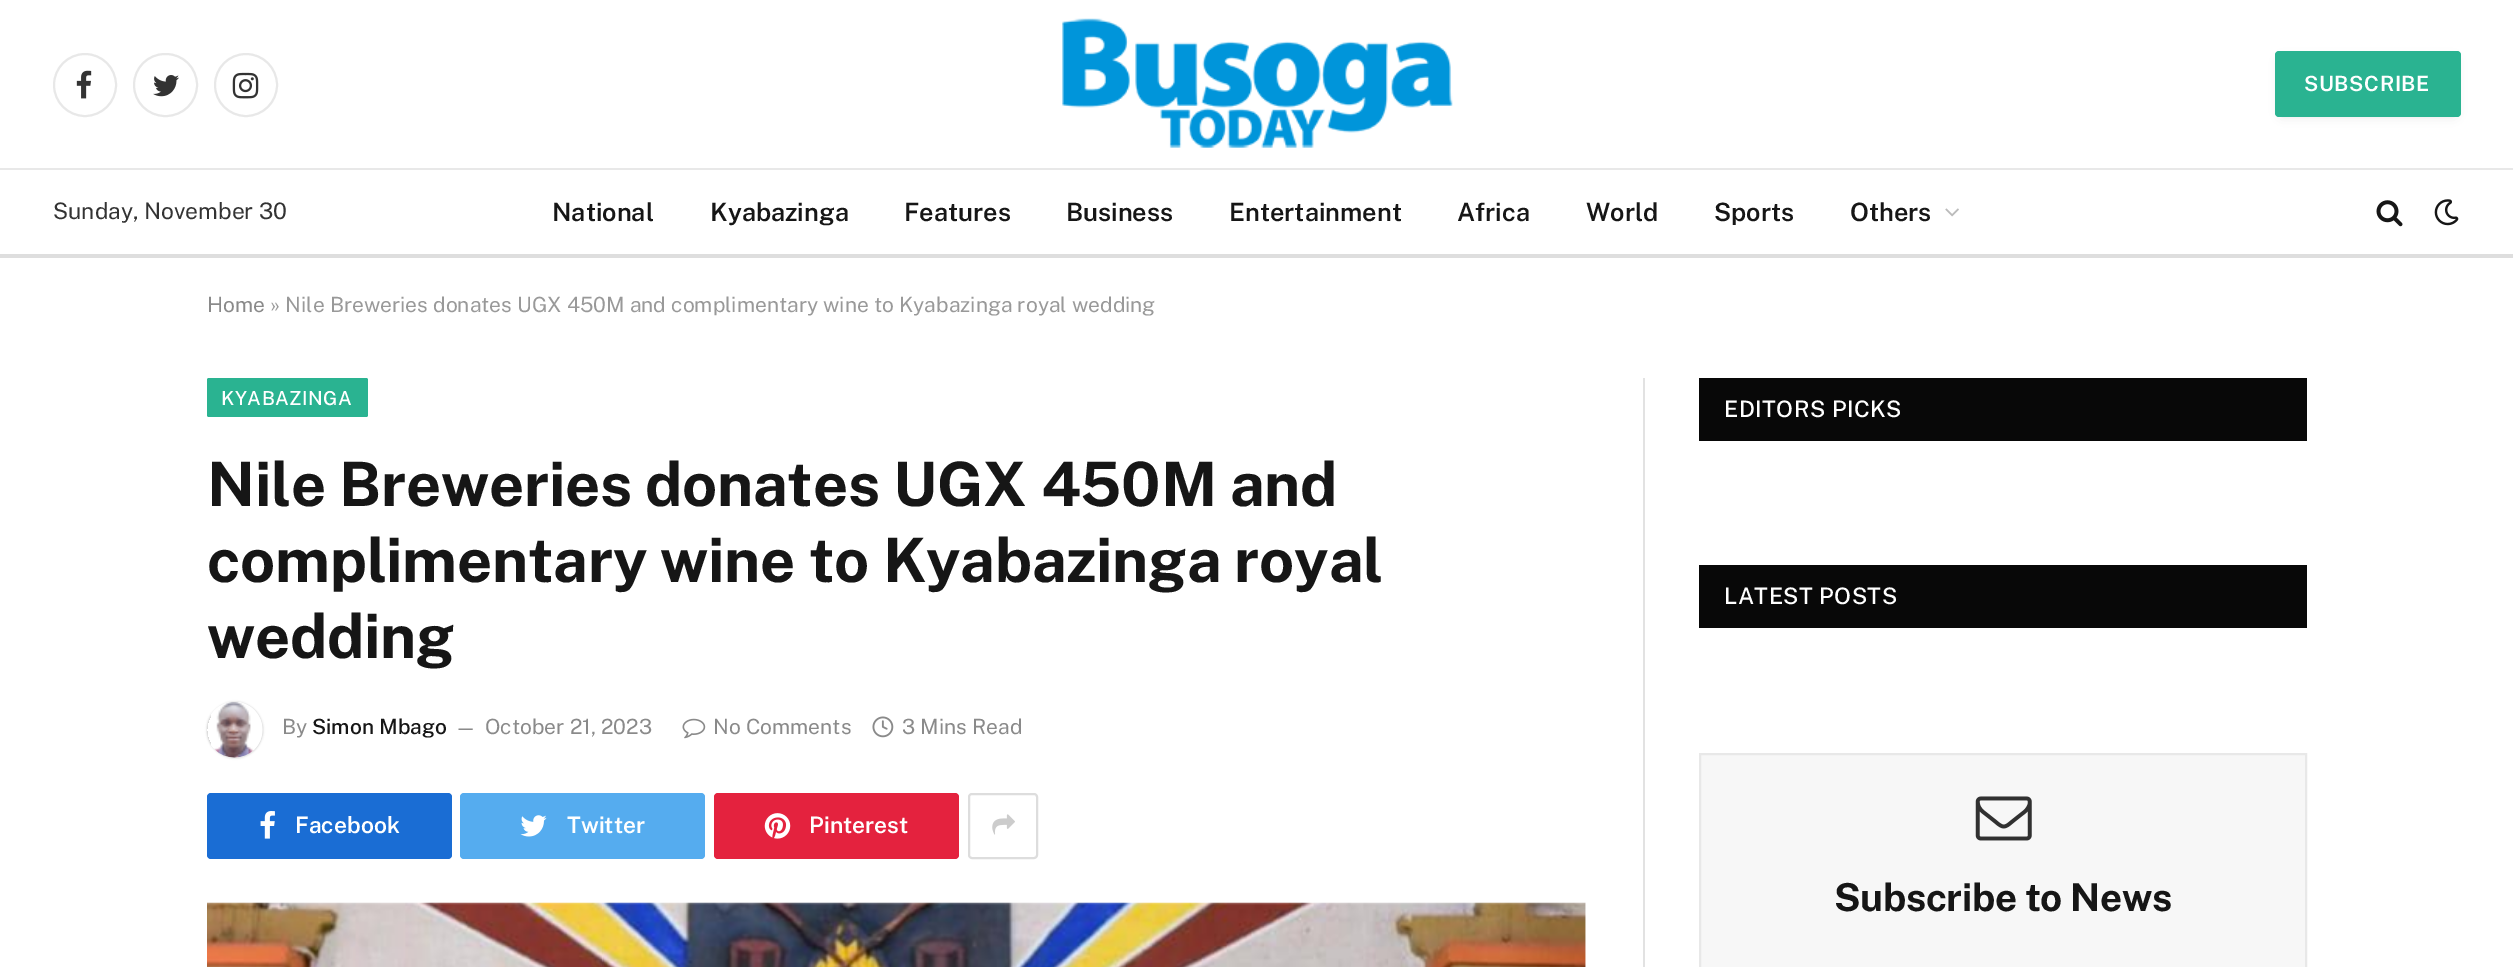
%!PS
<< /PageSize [2513 967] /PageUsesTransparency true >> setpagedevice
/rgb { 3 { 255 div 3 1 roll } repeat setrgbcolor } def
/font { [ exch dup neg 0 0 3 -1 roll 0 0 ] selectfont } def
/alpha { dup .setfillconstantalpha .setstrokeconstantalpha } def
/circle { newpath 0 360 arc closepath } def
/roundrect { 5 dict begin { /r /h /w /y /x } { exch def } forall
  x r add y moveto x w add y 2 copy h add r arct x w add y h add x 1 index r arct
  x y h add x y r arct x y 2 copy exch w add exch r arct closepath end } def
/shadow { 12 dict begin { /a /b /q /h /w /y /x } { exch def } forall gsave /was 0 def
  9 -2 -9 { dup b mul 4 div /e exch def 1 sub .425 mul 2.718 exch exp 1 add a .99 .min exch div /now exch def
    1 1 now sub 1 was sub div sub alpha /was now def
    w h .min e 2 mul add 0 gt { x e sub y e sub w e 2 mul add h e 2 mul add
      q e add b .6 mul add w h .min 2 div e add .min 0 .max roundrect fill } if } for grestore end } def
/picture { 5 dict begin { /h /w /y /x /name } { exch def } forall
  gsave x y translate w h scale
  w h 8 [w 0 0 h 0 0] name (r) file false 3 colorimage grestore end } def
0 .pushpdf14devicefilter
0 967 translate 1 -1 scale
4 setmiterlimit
255 255 255 rgb
0 0 2513 967 rectfill
232 232 232 rgb
2 setlinewidth
85 85 31 circle stroke
(img/1.rgb) 76 70 16 29 picture
134 54 63 62 31 roundrect stroke
(img/2.rgb) 153 75 26 22 picture
246 85 31 circle stroke
(img/3.rgb) 232 72 27 27 picture
(img/4.rgb) 1062 18 391 130 picture
0 0 0 rgb
2282 61 172 53 0 6 0.16 shadow
42 179 145 rgb
2275 51 186 66 4 roundrect fill
232 232 232 rgb
0 168 2513 2 rectfill
222 222 222 rgb
0 254 2513 4 rectfill
(img/5.rgb) 1945 208 14 9 picture
(img/6.rgb) 2376 200 27 27 picture
(img/7.rgb) 2434 199 25 27 picture
42 179 145 rgb
207 378 161 39 2 roundrect fill
gsave
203 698 moveto 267 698 lineto 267 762 lineto 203 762 lineto closepath 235 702 moveto 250.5 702 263 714.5 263 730 curveto 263 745.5 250.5 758 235 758 curveto 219.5 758 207 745.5 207 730 curveto 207 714.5 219.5 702 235 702 curveto closepath eoclip newpath
0 0 0 rgb
207 702 56 56 28 1 0.2 shadow
grestore
(img/8.rgb) 211 702 52 56 picture
(img/9.rgb) 682 718 24 21 picture
(img/10.rgb) 872 716 22 22 picture
26 109 212 rgb
207 793 245 66 4 roundrect fill
(img/11.rgb) 260 811 15 28 picture
85 172 239 rgb
460 793 245 66 4 roundrect fill
(img/12.rgb) 520 815 27 22 picture
228 34 62 rgb
714 793 245 66 4 roundrect fill
(img/13.rgb) 764 813 27 26 picture
221 221 221 rgb
969 794 68 64 3 roundrect stroke
(img/14.rgb) 992 814 23 21 picture
(img/15.rgb) 207 902 1379 65 picture
[
  [1643 378 2 589 226 226 226]
  [1699 378 608 63 8 8 8]
  [1699 565 608 63 8 8 8]
] { aload pop rgb rectfill } forall
247 247 247 rgb
1700 754 moveto 2306 754 lineto 2306 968 lineto 1700 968 lineto closepath gsave fill grestore
232 232 232 rgb
stroke
(img/16.rgb) 1975 796 57 45 picture
/PublicSans-SemiBold 21 font
255 255 255 rgb
2304 91 moveto 0.6 0 (SUBSCRIBE) ashow
/PublicSans-Regular 22.75 font
51 51 51 rgb
53 219 moveto (Sunday, November 30) show
/PublicSans-SemiBold 25.25 font
22 22 22 rgb
[
  [(National) 552 221]
  [(Kyabazinga) 710 221]
  [(Features) 904 221]
  [(Business) 1066 221]
  [(Entertainment) 1229 221]
  [(Africa) 1457 221]
  [(World) 1586 221]
  [(Sports) 1714 221]
  [(Others) 1850 221]
] { aload pop moveto show } forall
/PublicSans-Regular 21 font
138 138 138 rgb
207 312 moveto (Home) show
153 153 153 rgb
270 312 moveto (» Nile Breweries donates UGX 450M and complimentary wine to Kyabazinga royal wedding) show
/PublicSans-Medium 19.25 font
255 255 255 rgb
221 405 moveto 0.5 0 (KYABAZINGA) ashow
/PublicSans-Bold 61.25 font
22 22 22 rgb
207 506 moveto -0.3 0 (Nile Breweries donates UGX 450M and) ashow
207 582 moveto -0.3 0 (complimentary wine to Kyabazinga royal) ashow
207 658 moveto -0.3 0 (wedding) ashow
/PublicSans-Regular 21 font
138 138 138 rgb
282 734 moveto (By) show
/PublicSans-Medium 21 font
22 22 22 rgb
312 734 moveto (Simon Mbago) show
/PublicSans-Regular 19 font
138 138 138 rgb
455 734 moveto (—) show
/PublicSans-Regular 21 font
[
  [(October 21, 2023) 485 734]
  [(No Comments) 713 734]
  [(3 Mins Read) 902 734]
] { aload pop moveto show } forall
/PublicSans-SemiBold 22.75 font
255 255 255 rgb
[
  [(Facebook) 295 833]
  [(Twitter) 567 833]
  [(Pinterest) 809 833]
] { aload pop moveto show } forall
/PublicSans-Medium 22.75 font
1724 417 moveto 0.5 0 (EDITORS PICKS) ashow
1724 604 moveto 0.5 0 (LATEST POSTS) ashow
/PublicSans-Bold 38.5 font
22 22 22 rgb
1834 911 moveto -0.4 0 (Subscribe to News) ashow
.poppdf14devicefilter showpage
